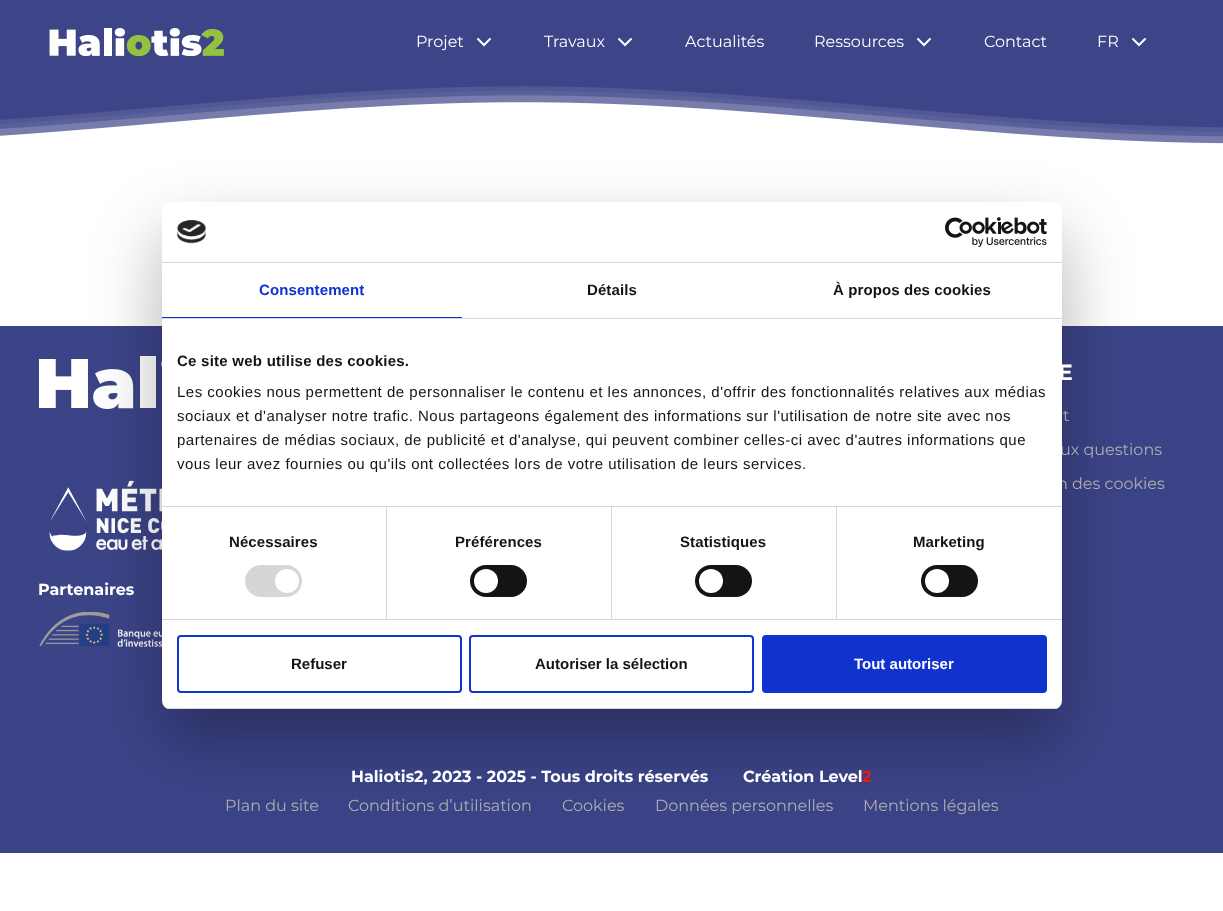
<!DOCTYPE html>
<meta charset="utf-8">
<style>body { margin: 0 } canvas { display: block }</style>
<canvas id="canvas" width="1223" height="911"></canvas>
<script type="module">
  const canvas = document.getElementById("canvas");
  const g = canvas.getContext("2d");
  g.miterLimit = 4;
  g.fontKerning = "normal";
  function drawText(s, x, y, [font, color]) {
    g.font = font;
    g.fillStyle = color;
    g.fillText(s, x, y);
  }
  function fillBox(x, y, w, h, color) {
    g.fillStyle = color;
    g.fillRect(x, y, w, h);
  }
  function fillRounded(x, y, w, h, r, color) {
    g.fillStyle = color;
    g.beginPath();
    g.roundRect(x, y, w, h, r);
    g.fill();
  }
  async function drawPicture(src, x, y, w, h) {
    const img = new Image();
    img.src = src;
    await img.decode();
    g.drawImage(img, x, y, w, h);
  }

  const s1 = ["16px Montserrat", "#FFFFFF"];
  const s2 = ["16px Montserrat", "#ADADAD"];
  const s3 = ["bold 15px Liberation Sans", "#1032CF"];
  const s4 = ["bold 15px Liberation Sans", "#141414"];
  const s5 = ["15px Liberation Sans", "#141414"];
  const s6 = ["bold 15px Liberation Sans", "#FFFFFF"];
  const s7 = ["bold 22px Montserrat", "#FFFFFF"];
  const s8 = ["bold 16px Montserrat", "#FFFFFF"];
  const s9 = ["bold 16px Montserrat", "#ED1717"];

  fillBox(0, 0, 1223, 911, "#FFFFFF");
  fillBox(0, 0, 1223, 84, "#3D4488");
  await drawPicture("pic1.png", 49, 28, 175, 28);
  drawText("Projet", 416, 47, s1);
  g.beginPath();
  g.moveTo(478, 39);
  g.lineTo(484, 45);
  g.lineTo(490, 39);
  g.strokeStyle = "#FFFFFF";
  g.lineWidth = 2;
  g.lineCap = "round";
  g.stroke();
  drawText("Travaux", 544, 47, s1);
  g.beginPath();
  g.moveTo(619, 39);
  g.lineTo(625, 45);
  g.lineTo(631, 39);
  g.stroke();
  drawText("Actualités", 685, 47, s1);
  drawText("Ressources", 814, 47, s1);
  g.beginPath();
  g.moveTo(918, 39);
  g.lineTo(924, 45);
  g.lineTo(930, 39);
  g.stroke();
  drawText("Contact", 984, 47, s1);
  drawText("FR", 1097, 47, s1);
  g.beginPath();
  g.moveTo(1133, 39);
  g.lineTo(1139, 45);
  g.lineTo(1145, 39);
  g.stroke();
  await drawPicture("pic2.png", 0, 84, 1223, 60);
  fillBox(0, 326, 1223, 527, "#3C4488");
  await drawPicture("pic5.png", 39, 356, 123, 53);
  await drawPicture("pic6.png", 49, 480, 113, 71);
  await drawPicture("pic7.png", 39, 612, 123, 35);
  g.fillStyle = "rgba(0, 0, 0, 0.3)";
  g.filter = "blur(34px)";
  g.beginPath();
  g.roundRect(162, 234, 900, 507, 8);
  g.fill();
  g.filter = "none";
  drawText("ux questions", 1060, 455, s2);
  drawText("n des cookies", 1057, 489, s2);
  fillRounded(162, 202, 900, 507, 8, "#FFFFFF");
  fillBox(162, 262, 900, 1, "#D6D6D6");
  await drawPicture("pic3.png", 176, 220, 30, 24);
  await drawPicture("pic4.png", 945, 217, 102, 30);
  fillBox(162, 318, 900, 1, "#D6D6D6");
  fillBox(162, 317, 300, 1, "#1032CF");
  g.letterSpacing = "0.1px";
  drawText("Consentement", 259, 295, s3);
  drawText("Détails", 587, 295, s4);
  drawText("À propos des cookies", 833, 295, s4);
  fillBox(162, 506, 900, 1, "#D6D6D6");
  g.letterSpacing = "0.25px";
  drawText("Ce site web utilise des cookies.", 177, 366, s4);
  g.letterSpacing = "0.5px";
  drawText("Les cookies nous permettent de personnaliser le contenu et les annonces, d'offrir des fonctionnalités relatives aux médias", 177, 397, s5);
  drawText("sociaux et d'analyser notre trafic. Nous partageons également des informations sur l'utilisation de notre site avec nos", 177, 421, s5);
  drawText("partenaires de médias sociaux, de publicité et d'analyse, qui peuvent combiner celles-ci avec d'autres informations que", 177, 445, s5);
  drawText("vous leur avez fournies ou qu'ils ont collectées lors de votre utilisation de leurs services.", 177, 469, s5);
  fillBox(162, 619, 900, 1, "#D6D6D6");
  fillBox(386, 507, 1, 112, "#D6D6D6");
  g.letterSpacing = "0.1px";
  drawText("Nécessaires", 229, 547, s4);
  fillRounded(245, 565, 57, 32, 16, "#D6D6D6");
  g.fillStyle = "#FFFFFF";
  g.beginPath();
  g.arc(287, 581, 12, 0, Math.PI * 2);
  g.fill();
  fillBox(611, 507, 1, 112, "#D6D6D6");
  drawText("Préférences", 455, 547, s4);
  fillRounded(470, 565, 57, 32, 16, "#141414");
  g.fillStyle = "#FFFFFF";
  g.beginPath();
  g.arc(486, 581, 12, 0, Math.PI * 2);
  g.fill();
  fillBox(836, 507, 1, 112, "#D6D6D6");
  drawText("Statistiques", 680, 547, s4);
  fillRounded(695, 565, 57, 32, 16, "#141414");
  g.fillStyle = "#FFFFFF";
  g.beginPath();
  g.arc(711, 581, 12, 0, Math.PI * 2);
  g.fill();
  drawText("Marketing", 913, 547, s4);
  fillRounded(921, 565, 57, 32, 16, "#141414");
  g.fillStyle = "#FFFFFF";
  g.beginPath();
  g.arc(937, 581, 12, 0, Math.PI * 2);
  g.fill();
  g.save();
  g.beginPath();
  g.roundRect(162, 202, 900, 507, 8);
  g.clip();
  fillBox(162, 708, 900, 1, "#D6D6D6");
  g.restore();
  g.beginPath();
  g.roundRect(178, 636, 283, 56, 3);
  g.strokeStyle = "#1032CF";
  g.stroke();
  g.letterSpacing = "0px";
  drawText("Refuser", 291, 669, s4);
  g.beginPath();
  g.roundRect(470, 636, 283, 56, 3);
  g.stroke();
  drawText("Autoriser la sélection", 535, 669, s4);
  g.fillStyle = "#1032CF";
  g.beginPath();
  g.roundRect(763, 636, 283, 56, 3);
  g.fill();
  g.stroke();
  drawText("Tout autoriser", 854, 669, s6);
  drawText("E", 1058, 380, s7);
  drawText("t", 1063, 421, s2);
  drawText("Partenaires", 38, 595, s8);
  drawText("Haliotis2, 2023 - 2025 - Tous droits réservés", 351, 782, s8);
  drawText("Création Level", 743, 782, s8);
  drawText("2", 862, 782, s9);
  drawText("Plan du site", 225, 811, s2);
  drawText("Conditions d’utilisation", 348, 811, s2);
  drawText("Cookies", 562, 811, s2);
  drawText("Données personnelles", 655, 811, s2);
  drawText("Mentions légales", 863, 811, s2);
</script>
